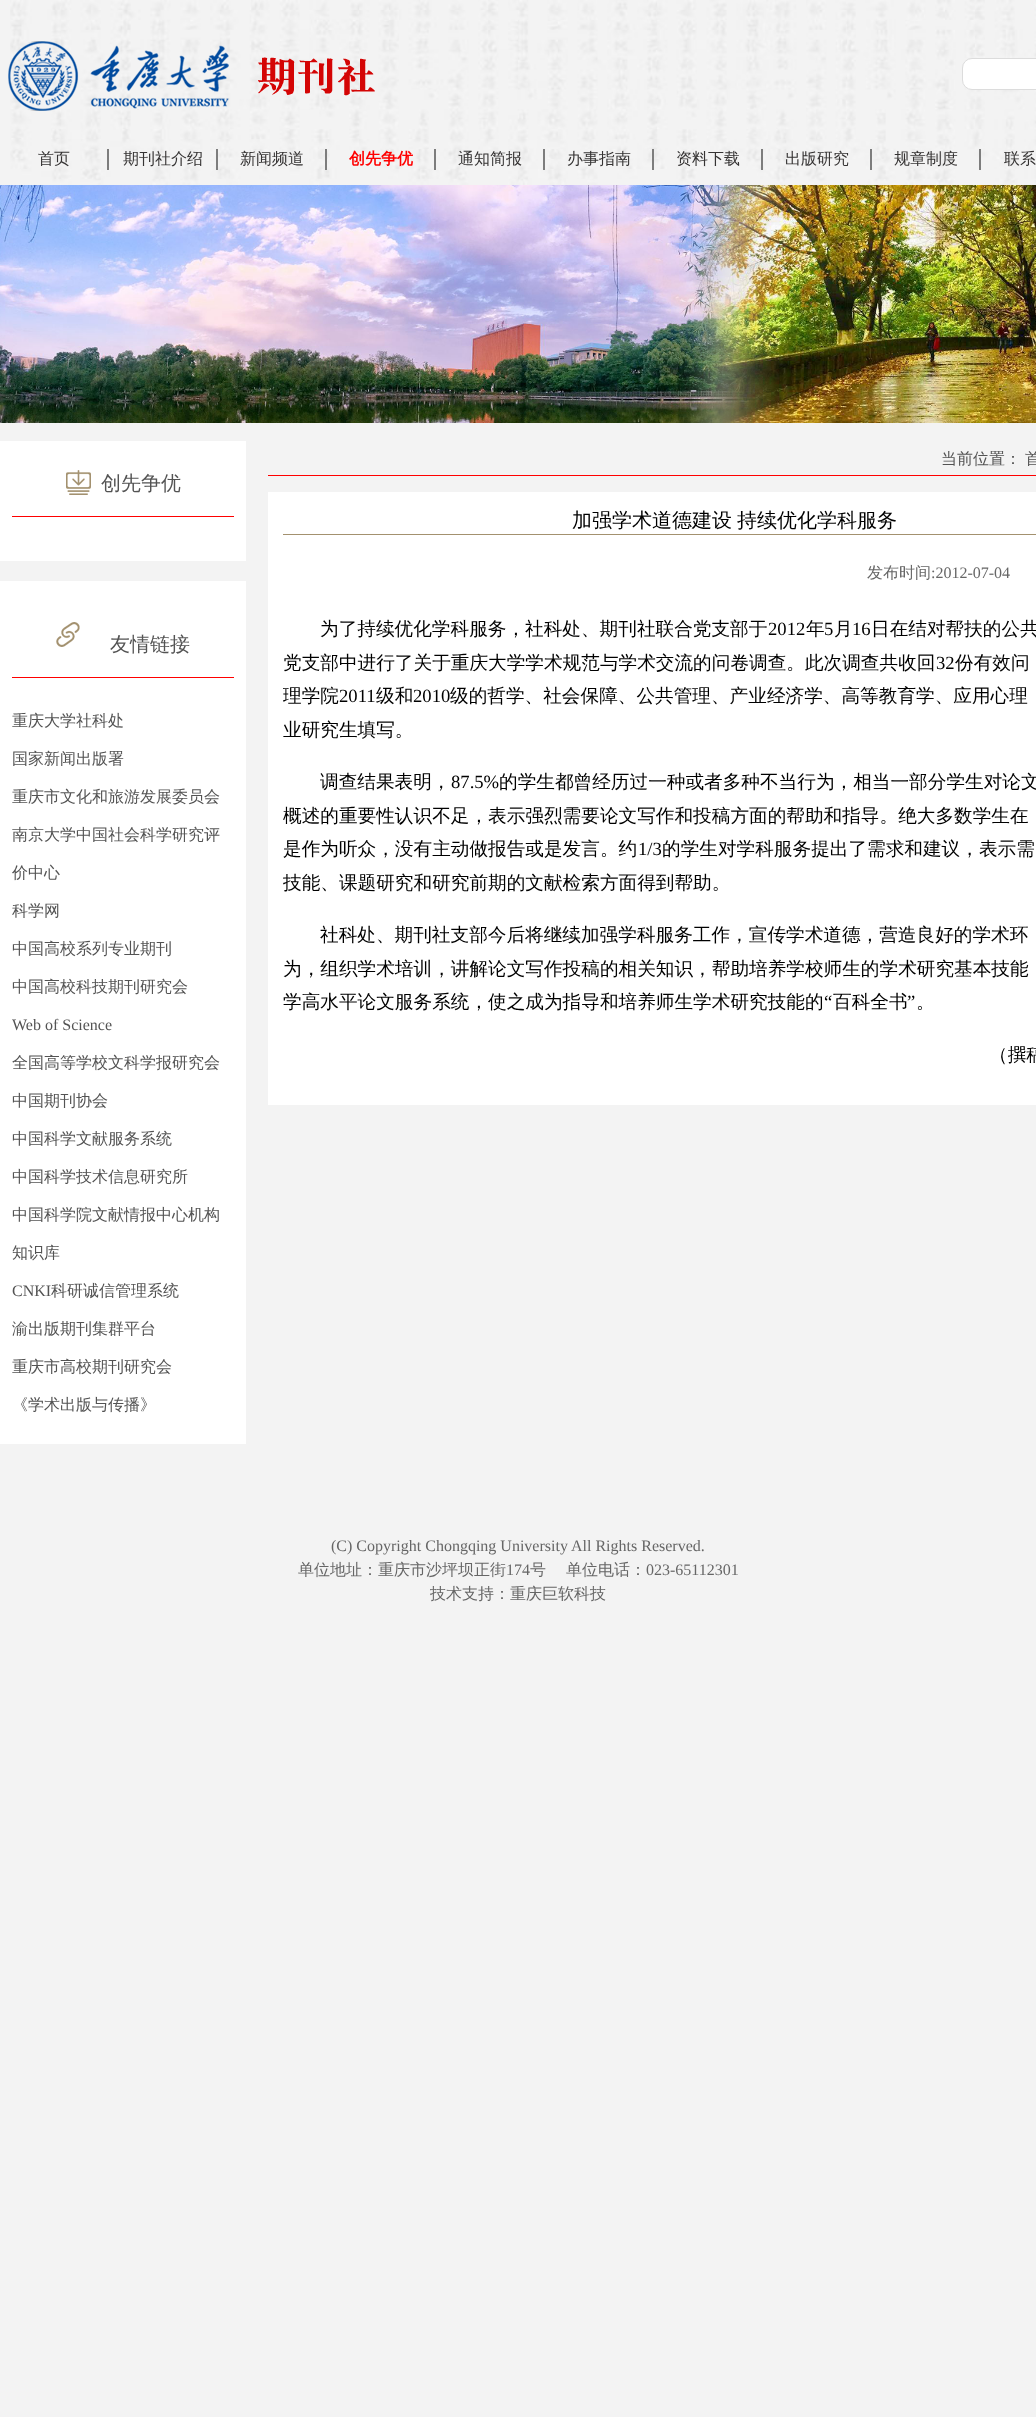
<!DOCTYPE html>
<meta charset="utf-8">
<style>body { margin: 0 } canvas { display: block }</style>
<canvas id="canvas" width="1036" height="2417"></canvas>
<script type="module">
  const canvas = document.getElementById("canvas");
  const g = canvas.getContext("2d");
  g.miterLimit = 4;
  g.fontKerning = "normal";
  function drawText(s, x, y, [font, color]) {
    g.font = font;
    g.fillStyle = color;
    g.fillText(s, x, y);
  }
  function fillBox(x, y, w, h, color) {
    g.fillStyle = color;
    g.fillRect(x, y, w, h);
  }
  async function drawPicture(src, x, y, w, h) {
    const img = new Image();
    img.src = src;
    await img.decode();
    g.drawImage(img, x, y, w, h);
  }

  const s1 = ["500 16px WenQuanYi Zen Hei", "#353333"];
  const s2 = ["bold 16px WenQuanYi Zen Hei", "#FF0000"];
  const s3 = ["500 20px WenQuanYi Zen Hei", "#535353"];
  const s4 = ["500 16px WenQuanYi Zen Hei", "#535353"];
  const s5 = ["16px Liberation Serif", "#535353"];
  const s6 = ["500 20px WenQuanYi Zen Hei", "#000000"];
  const s7 = ["500 16px WenQuanYi Zen Hei", "#666666"];
  const s8 = ["16px Liberation Serif", "#666666"];
  const s9 = ["500 18.65px WenQuanYi Zen Hei", "#000000"];
  const s10 = ["18.65px Liberation Serif", "#000000"];

  fillBox(0, 0, 1036, 2417, "#F3F3F3");
  await drawPicture("pic1.png", 10, 0, 1026, 185);
  await drawPicture("pic2.png", 8, 41, 367, 70);
  g.fillStyle = "#FFFFFF";
  g.beginPath();
  g.roundRect(962.5, 58.5, 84, 31, 9.5);
  g.fill();
  g.strokeStyle = "#DCDCDC";
  g.stroke();
  fillBox(107, 149, 2, 21, "#7D7D7D");
  drawText("首页", 38, 164, s1);
  fillBox(216, 149, 2, 21, "#7D7D7D");
  drawText("期刊社介绍", 123, 164, s1);
  fillBox(325, 149, 2, 21, "#7D7D7D");
  drawText("新闻频道", 240, 164, s1);
  fillBox(434, 149, 2, 21, "#7D7D7D");
  drawText("创先争优", 349, 164, s2);
  fillBox(543, 149, 2, 21, "#7D7D7D");
  drawText("通知简报", 458, 164, s1);
  fillBox(652, 149, 2, 21, "#7D7D7D");
  drawText("办事指南", 567, 164, s1);
  fillBox(761, 149, 2, 21, "#7D7D7D");
  drawText("资料下载", 676, 164, s1);
  fillBox(870, 149, 2, 21, "#7D7D7D");
  drawText("出版研究", 785, 164, s1);
  fillBox(979, 149, 2, 21, "#7D7D7D");
  drawText("规章制度", 894, 164, s1);
  drawText("联系", 1004, 164, s1);
  await drawPicture("pic3.png", 0, 185, 1036, 238);
  fillBox(0, 441, 246, 120, "#FFFFFF");
  fillBox(12, 516, 222, 1, "#FF0000");
  await drawPicture("pic4.png", 66, 470, 25, 25);
  drawText("创先争优", 101, 490, s3);
  fillBox(0, 581, 246, 863, "#FFFFFF");
  fillBox(12, 677, 222, 1, "#FF0000");
  await drawPicture("pic5.png", 56, 622, 24, 25);
  drawText("友情链接", 110, 651, s3);
  drawText("重庆大学社科处", 12, 726, s4);
  drawText("国家新闻出版署", 12, 764, s4);
  drawText("重庆市文化和旅游发展委员会", 12, 802, s4);
  drawText("南京大学中国社会科学研究评", 12, 840, s4);
  drawText("价中心", 12, 878, s4);
  drawText("科学网", 12, 916, s4);
  drawText("中国高校系列专业期刊", 12, 954, s4);
  drawText("中国高校科技期刊研究会", 12, 992, s4);
  drawText("Web of Science", 12, 1030, s5);
  drawText("全国高等学校文科学报研究会", 12, 1068, s4);
  drawText("中国期刊协会", 12, 1106, s4);
  drawText("中国科学文献服务系统", 12, 1144, s4);
  drawText("中国科学技术信息研究所", 12, 1182, s4);
  drawText("中国科学院文献情报中心机构", 12, 1220, s4);
  drawText("知识库", 12, 1258, s4);
  drawText("CNKI", 12, 1296, s5);
  drawText("科研诚信管理系统", 51, 1296, s4);
  drawText("渝出版期刊集群平台", 12, 1334, s4);
  drawText("重庆市高校期刊研究会", 12, 1372, s4);
  drawText("《学术出版与传播》", 12, 1410, s4);
  fillBox(268, 475, 768, 1, "#FF0000");
  drawText("当前位置：", 941, 464, s4);
  drawText("首", 1025, 464, s4);
  fillBox(268, 492, 768, 613, "#FFFFFF");
  fillBox(283, 534, 753, 1, "#A3916F");
  g.wordSpacing = "-1px";
  drawText("加强学术道德建设 持续优化学科服务", 572, 527, s6);
  g.wordSpacing = "0px";
  drawText("发布时间", 867, 578, s7);
  drawText(":2012-07-04", 931, 578, s8);
  drawText("为了持续优化学科服务，社科处、期刊社联合党支部于", 320, 635, s9);
  drawText("2012", 768, 635, s10);
  drawText("年", 806, 635, s9);
  drawText("5", 824, 635, s10);
  drawText("月", 834, 635, s9);
  drawText("16", 852, 635, s10);
  drawText("日在结对帮扶的公共", 871, 635, s9);
  drawText("党支部中进行了关于重庆大学学术规范与学术交流的问卷调查。此次调查共收回", 283, 669, s9);
  drawText("32", 936, 669, s10);
  drawText("份有效问", 955, 669, s9);
  drawText("理学院", 283, 702, s9);
  drawText("2011", 339, 702, s10);
  drawText("级和", 376, 702, s9);
  drawText("2010", 413, 702, s10);
  drawText("级的哲学、社会保障、公共管理、产业经济学、高等教育学、应用心理", 450, 702, s9);
  drawText("业研究生填写。", 283, 736, s9);
  drawText("调查结果表明，", 320, 788, s9);
  drawText("87.5%", 451, 788, s10);
  drawText("的学生都曾经历过一种或者多种不当行为，相当一部分学生对论文", 499, 788, s9);
  drawText("概述的重要性认识不足，表示强烈需要论文写作和投稿方面的帮助和指导。绝大多数学生在", 283, 822, s9);
  drawText("是作为听众，没有主动做报告或是发言。约", 283, 855, s9);
  drawText("1/3", 638, 855, s10);
  drawText("的学生对学科服务提出了需求和建议，表示需", 662, 855, s9);
  drawText("技能、课题研究和研究前期的文献检索方面得到帮助。", 283, 889, s9);
  drawText("社科处、期刊社支部今后将继续加强学科服务工作，宣传学术道德，营造良好的学术环", 320, 941, s9);
  drawText("为，组织学术培训，讲解论文写作投稿的相关知识，帮助培养学校师生的学术研究基本技能", 283, 975, s9);
  drawText("学高水平论文服务系统，使之成为指导和培养师生学术研究技能的", 283, 1008, s9);
  drawText("“", 824, 1008, s10);
  drawText("百科全书", 833, 1008, s9);
  drawText("”", 907, 1008, s10);
  drawText("。", 916, 1008, s9);
  g.wordSpacing = "-1px";
  drawText("（撰稿", 989, 1061, s9);
  g.wordSpacing = "0px";
  drawText("(C) Copyright Chongqing University All Rights Reserved.", 331, 1551, s8);
  drawText("单位地址：重庆市沙坪坝正街", 298, 1575, s7);
  drawText("174", 506, 1575, s8);
  drawText("号", 530, 1575, s7);
  drawText("单位电话：", 566, 1575, s7);
  drawText("023-65112301", 646, 1575, s8);
  drawText("技术支持：重庆巨软科技", 430, 1599, s7);
</script>
